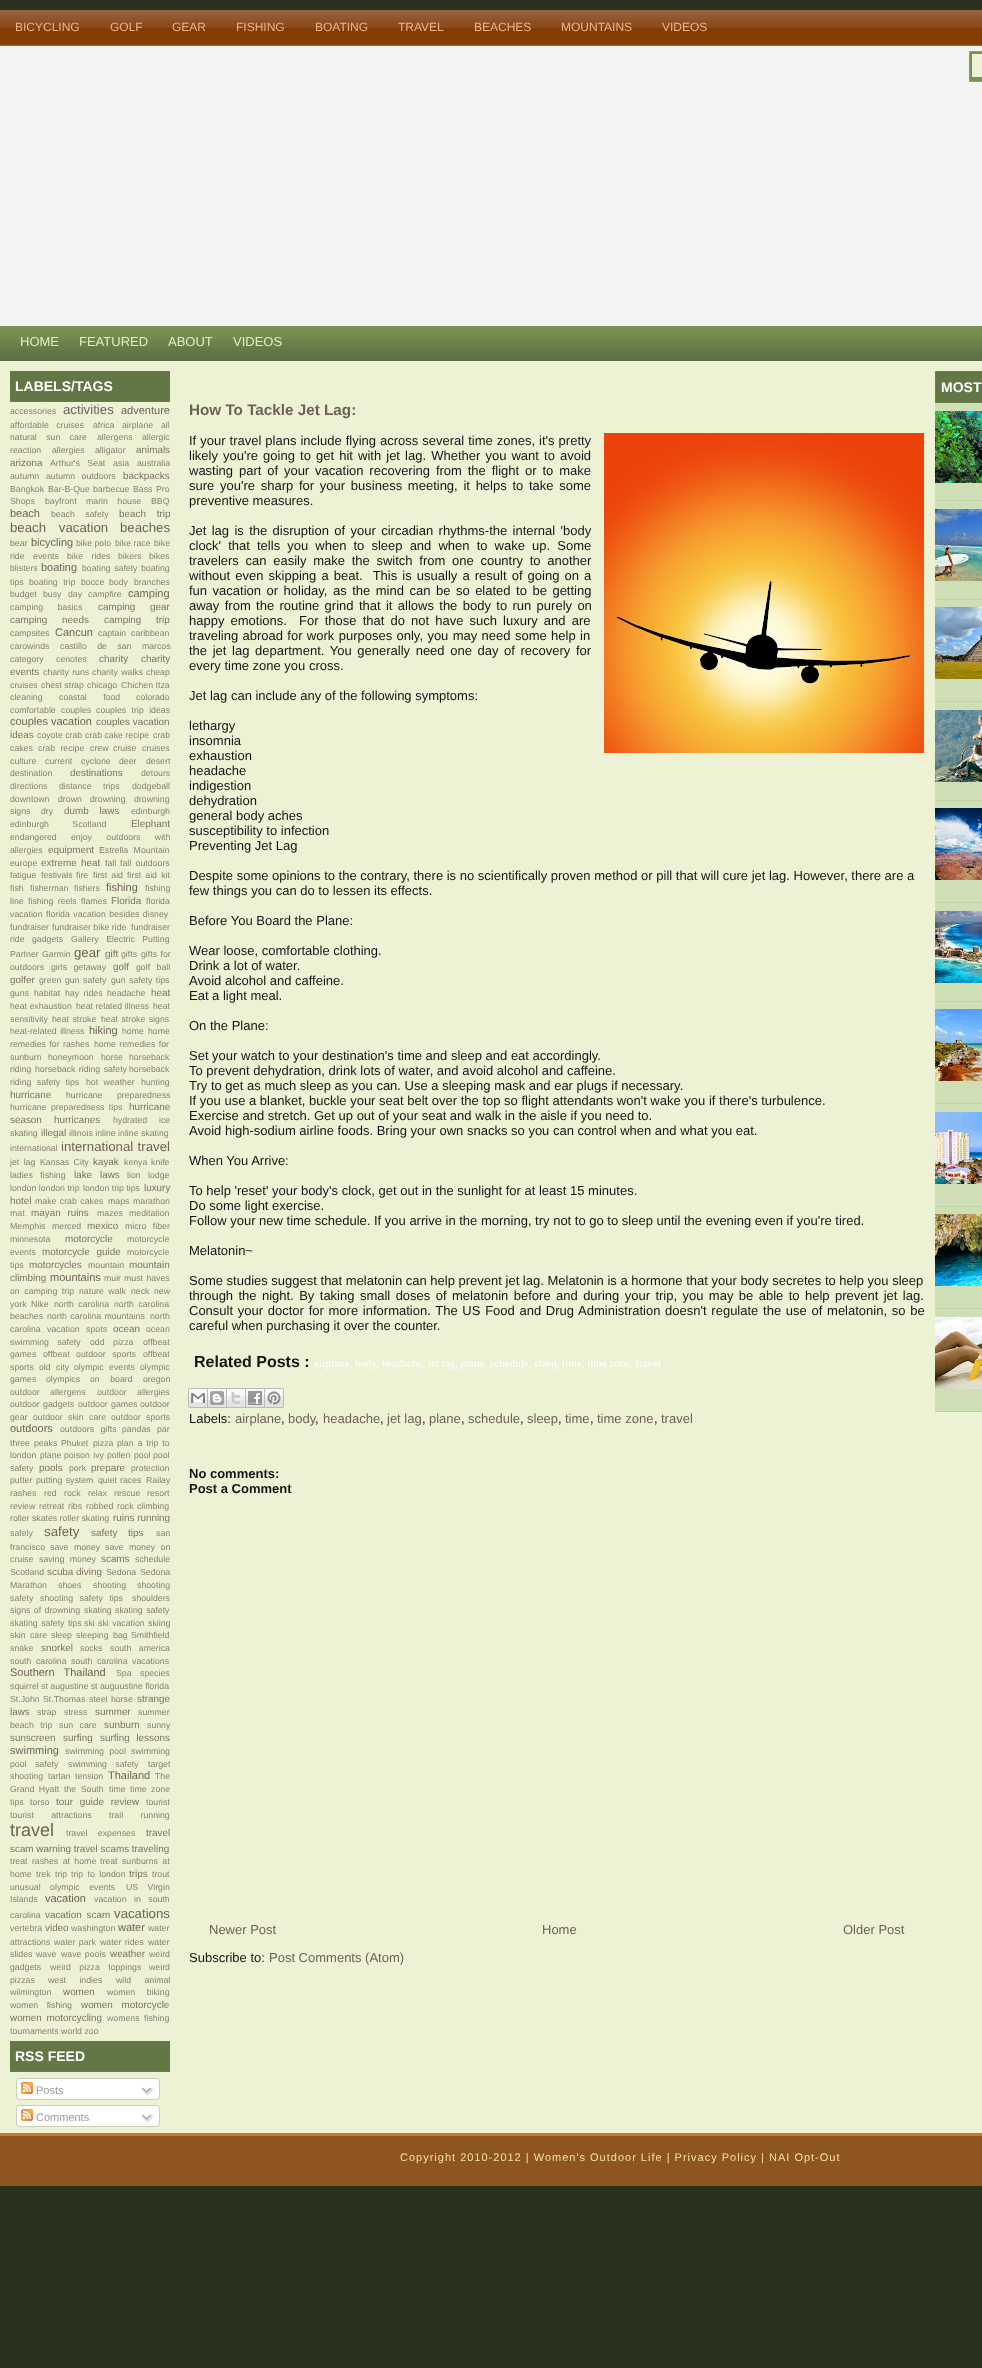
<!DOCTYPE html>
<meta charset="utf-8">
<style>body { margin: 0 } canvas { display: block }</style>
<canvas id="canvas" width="982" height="2368"></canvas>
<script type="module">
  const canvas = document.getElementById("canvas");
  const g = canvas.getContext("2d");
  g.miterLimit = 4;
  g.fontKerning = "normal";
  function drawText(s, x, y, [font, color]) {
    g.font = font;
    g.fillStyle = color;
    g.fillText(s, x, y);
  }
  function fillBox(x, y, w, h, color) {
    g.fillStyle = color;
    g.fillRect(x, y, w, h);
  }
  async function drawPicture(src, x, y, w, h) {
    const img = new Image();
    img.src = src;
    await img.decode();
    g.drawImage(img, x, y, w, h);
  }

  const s1 = ["12px Liberation Sans", "#ECB487"];
  const s2 = ["13px Liberation Sans", "#DEEFC2"];
  const s3 = ["bold 14px Liberation Sans", "#FFFFFF"];
  const s4 = ["8.75px Liberation Sans", "#887E73"];
  const s5 = ["13.25px Liberation Sans", "#6F615A"];
  const s6 = ["11px Liberation Sans", "#6F615A"];
  const s7 = ["9.9px Liberation Sans", "#7C7066"];
  const s8 = ["18px Liberation Sans", "#6F615A"];
  const s9 = ["11px Liberation Sans", "#999999"];
  const s10 = ["bold 15.25px Liberation Sans", "#6F615A"];
  const s11 = ["13px Liberation Sans", "#161514"];
  const s12 = ["bold 16px Liberation Sans", "#161514"];
  const s13 = ["11px Liberation Serif", "#FFFFFF"];
  const s14 = ["13px Liberation Sans", "#6F615A"];
  const s15 = ["bold 13px Liberation Sans", "#161514"];
  const s16 = ["11px Liberation Sans", "#EFE2A4"];

  fillBox(0, 0, 982, 2368, "#2A311F");
  await drawPicture("pic1.png", 0, 10, 982, 35);
  fillBox(0, 45, 982, 1, "#67842A");
  drawText("BICYCLING", 15, 31, s1);
  drawText("GOLF", 110, 31, s1);
  drawText("GEAR", 172, 31, s1);
  drawText("FISHING", 236, 31, s1);
  drawText("BOATING", 315, 31, s1);
  drawText("TRAVEL", 398, 31, s1);
  drawText("BEACHES", 474, 31, s1);
  drawText("MOUNTAINS", 561, 31, s1);
  drawText("VIDEOS", 662, 31, s1);
  fillBox(0, 46, 982, 280, "#F4F4F4");
  g.fillStyle = "#7A9256";
  g.beginPath();
  g.rect(969.5, 51.5, 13, 30);
  g.fill();
  g.strokeStyle = "#8B9F6D";
  g.stroke();
  fillBox(972, 54, 10, 23, "#EEF2D5");
  await drawPicture("pic2.png", 0, 326, 982, 35);
  drawText("HOME", 20, 346, s2);
  drawText("FEATURED", 79, 346, s2);
  drawText("ABOUT", 168, 346, s2);
  drawText("VIDEOS", 233, 346, s2);
  fillBox(0, 361, 982, 1772, "#EEF2D5");
  fillBox(10, 371, 160, 30, "#637746");
  fillBox(10, 401, 160, 1, "#687F47");
  drawText("LABELS/TAGS", 15, 391, s3);
  drawText("accessories", 10, 414, s4);
  drawText("activities", 63, 414, s5);
  drawText("adventure", 121, 414, s6);
  g.wordSpacing = "5px";
  drawText("affordable cruises", 10, 428, s4);
  g.wordSpacing = "0px";
  drawText("africa", 93, 428, s4);
  drawText("airplane", 122, 428, s4);
  drawText("all", 161, 428, s4);
  g.wordSpacing = "7px";
  drawText("natural sun care", 10, 440, s4);
  g.wordSpacing = "0px";
  drawText("allergens", 97, 440, s4);
  drawText("allergic", 142, 440, s4);
  drawText("reaction", 10, 453, s4);
  drawText("allergies", 52, 453, s4);
  drawText("alligator", 95, 453, s4);
  drawText("animals", 136, 453, s7);
  drawText("arizona", 10, 466, s7);
  g.wordSpacing = "5px";
  drawText("Arthur's Seat", 50, 466, s4);
  g.wordSpacing = "0px";
  drawText("asia", 113, 466, s4);
  drawText("australia", 137, 466, s4);
  drawText("autumn", 10, 479, s4);
  g.wordSpacing = "4px";
  drawText("autumn outdoors", 46, 479, s4);
  g.wordSpacing = "0px";
  drawText("backpacks", 123, 479, s7);
  drawText("Bangkok", 10, 492, s4);
  drawText("Bar-B-Que", 48, 492, s4);
  drawText("barbecue", 93, 492, s4);
  g.wordSpacing = "1px";
  drawText("Bass Pro", 133, 492, s4);
  g.wordSpacing = "0px";
  drawText("Shops", 10, 504, s4);
  g.wordSpacing = "7px";
  drawText("bayfront marin house", 45, 504, s4);
  g.wordSpacing = "0px";
  drawText("BBQ", 151, 504, s4);
  drawText("beach", 10, 517, s6);
  g.wordSpacing = "8px";
  drawText("beach safety", 51, 517, s4);
  drawText("beach trip", 119, 517, s7);
  g.wordSpacing = "9px";
  drawText("beach vacation", 10, 532, s5);
  g.wordSpacing = "0px";
  drawText("beaches", 120, 532, s5);
  drawText("bear", 10, 546, s4);
  drawText("bicycling", 31, 546, s6);
  drawText("bike polo", 76, 546, s4);
  drawText("bike race", 115, 546, s4);
  drawText("bike", 154, 546, s4);
  g.wordSpacing = "6px";
  drawText("ride events", 10, 559, s4);
  drawText("bike rides", 67, 559, s4);
  g.wordSpacing = "0px";
  drawText("bikers", 118, 559, s4);
  drawText("bikes", 149, 559, s4);
  drawText("blisters", 10, 571, s4);
  drawText("boating", 41, 571, s6);
  g.wordSpacing = "1px";
  drawText("boating safety", 82, 571, s4);
  g.wordSpacing = "0px";
  drawText("boating", 141, 571, s4);
  drawText("tips", 10, 585, s4);
  g.wordSpacing = "3px";
  drawText("boating trip", 29, 585, s4);
  g.wordSpacing = "0px";
  drawText("bocce", 81, 585, s4);
  drawText("body", 109, 585, s4);
  drawText("branches", 134, 585, s4);
  drawText("budget", 10, 597, s4);
  g.wordSpacing = "4px";
  drawText("busy day", 43, 597, s4);
  g.wordSpacing = "0px";
  drawText("campfire", 88, 597, s4);
  drawText("camping", 128, 597, s6);
  g.wordSpacing = "12px";
  drawText("camping basics", 10, 610, s4);
  drawText("camping gear", 98, 610, s7);
  drawText("camping needs", 10, 623, s7);
  drawText("camping trip", 104, 623, s7);
  g.wordSpacing = "0px";
  drawText("campsites", 10, 636, s4);
  drawText("Cancun", 55, 636, s6);
  drawText("captain", 98, 636, s4);
  drawText("caribbean", 131, 636, s4);
  drawText("carowinds", 10, 649, s4);
  g.wordSpacing = "8px";
  drawText("castillo de san marcos", 60, 649, s4);
  g.wordSpacing = "0px";
  drawText("category", 10, 662, s4);
  drawText("cenotes", 56, 662, s4);
  drawText("charity", 99, 662, s7);
  drawText("charity", 141, 662, s7);
  drawText("events", 10, 675, s7);
  g.wordSpacing = "1px";
  drawText("charity runs", 43, 675, s4);
  drawText("charity walks", 92, 675, s4);
  g.wordSpacing = "0px";
  drawText("cheap", 146, 675, s4);
  drawText("cruises", 10, 688, s4);
  drawText("chest strap", 41, 688, s4);
  drawText("chicago", 87, 688, s4);
  drawText("Chichen Itza", 121, 688, s4);
  drawText("cleaning", 10, 700, s4);
  g.wordSpacing = "14px";
  drawText("coastal food", 59, 700, s4);
  g.wordSpacing = "0px";
  drawText("colorado", 136, 700, s4);
  drawText("comfortable", 10, 713, s4);
  drawText("couples", 61, 713, s4);
  g.wordSpacing = "3px";
  drawText("couples trip ideas", 96, 713, s4);
  g.wordSpacing = "0px";
  drawText("couples vacation", 10, 725, s6);
  drawText("couples vacation", 96, 725, s7);
  drawText("ideas", 10, 738, s7);
  drawText("coyote crab", 37, 738, s4);
  drawText("crab cake recipe", 85, 738, s4);
  drawText("crab", 153, 738, s4);
  drawText("cakes", 10, 751, s4);
  g.wordSpacing = "3px";
  drawText("crab recipe", 38, 751, s4);
  g.wordSpacing = "0px";
  drawText("crew", 90, 751, s4);
  drawText("cruise", 113, 751, s4);
  drawText("cruises", 142, 751, s4);
  drawText("culture", 10, 764, s4);
  drawText("current", 45, 764, s4);
  drawText("cyclone", 81, 764, s4);
  drawText("deer", 119, 764, s4);
  drawText("desert", 146, 764, s4);
  drawText("destination", 10, 776, s4);
  drawText("destinations", 70, 776, s7);
  drawText("detours", 141, 776, s4);
  drawText("directions", 10, 789, s4);
  g.wordSpacing = "9px";
  drawText("distance trips", 59, 789, s4);
  g.wordSpacing = "0px";
  drawText("dodgeball", 132, 789, s4);
  drawText("downtown", 10, 802, s4);
  drawText("drown", 58, 802, s4);
  drawText("drowning", 90, 802, s4);
  drawText("drowning", 134, 802, s4);
  drawText("signs", 10, 814, s4);
  drawText("dry", 41, 814, s4);
  g.wordSpacing = "8px";
  drawText("dumb laws", 64, 814, s7);
  g.wordSpacing = "0px";
  drawText("edinburgh", 131, 814, s4);
  g.wordSpacing = "21px";
  drawText("edinburgh Scotland", 10, 827, s4);
  g.wordSpacing = "0px";
  drawText("Elephant", 131, 827, s7);
  drawText("endangered", 10, 840, s4);
  g.wordSpacing = "12px";
  drawText("enjoy outdoors with", 71, 840, s4);
  g.wordSpacing = "0px";
  drawText("allergies", 10, 853, s4);
  drawText("equipment", 48, 853, s7);
  g.wordSpacing = "3px";
  drawText("Estrella Mountain", 99, 853, s4);
  g.wordSpacing = "0px";
  drawText("europe", 10, 866, s4);
  g.wordSpacing = "1.5px";
  drawText("extreme heat", 41, 866, s7);
  g.wordSpacing = "0px";
  drawText("fall", 105, 866, s4);
  g.wordSpacing = "2px";
  drawText("fall outdoors", 120, 866, s4);
  g.wordSpacing = "0px";
  drawText("fatigue", 10, 878, s4);
  drawText("festivals", 41, 878, s4);
  drawText("fire", 76, 878, s4);
  g.wordSpacing = "1.75px";
  drawText("first aid", 93, 878, s4);
  drawText("first aid kit", 127, 878, s4);
  g.wordSpacing = "0px";
  drawText("fish", 10, 891, s4);
  drawText("fisherman", 30, 891, s4);
  drawText("fishers", 74, 891, s4);
  drawText("fishing", 106, 891, s6);
  drawText("fishing", 145, 891, s4);
  drawText("line", 10, 904, s4);
  g.wordSpacing = "2px";
  drawText("fishing reels", 28, 904, s4);
  g.wordSpacing = "0px";
  drawText("flames", 81, 904, s4);
  drawText("Florida", 111, 904, s7);
  drawText("florida", 146, 904, s4);
  drawText("vacation", 10, 917, s4);
  g.wordSpacing = "1px";
  drawText("florida vacation besides disney", 46, 917, s4);
  g.wordSpacing = "0px";
  drawText("fundraiser", 10, 930, s4);
  drawText("fundraiser bike ride", 52, 930, s4);
  drawText("fundraiser", 131, 930, s4);
  drawText("ride", 10, 942, s4);
  drawText("gadgets", 32, 942, s4);
  g.wordSpacing = "5px";
  drawText("Gallery Electric Putting", 71, 942, s4);
  g.wordSpacing = "0px";
  drawText("Partner", 10, 957, s4);
  drawText("Garmin", 42, 957, s4);
  drawText("gear", 74, 957, s5);
  drawText("gift", 105, 957, s7);
  drawText("gifts", 121, 957, s4);
  g.wordSpacing = "1px";
  drawText("gifts for", 141, 957, s4);
  g.wordSpacing = "0px";
  drawText("outdoors", 10, 970, s4);
  g.wordSpacing = "4px";
  drawText("girls getaway", 51, 970, s4);
  g.wordSpacing = "0px";
  drawText("golf", 113, 970, s7);
  g.wordSpacing = "4px";
  drawText("golf ball", 136, 970, s4);
  g.wordSpacing = "0px";
  drawText("golfer", 10, 983, s7);
  drawText("green", 39, 983, s4);
  g.wordSpacing = "1px";
  drawText("gun safety", 65, 983, s4);
  drawText("gun safety tips", 111, 983, s4);
  g.wordSpacing = "0px";
  drawText("guns", 10, 996, s4);
  drawText("habitat", 34, 996, s4);
  g.wordSpacing = "2px";
  drawText("hay rides", 65, 996, s4);
  g.wordSpacing = "0px";
  drawText("headache", 107, 996, s4);
  drawText("heat", 151, 996, s7);
  drawText("heat exhaustion", 10, 1009, s4);
  drawText("heat related illness", 76, 1009, s4);
  drawText("heat", 153, 1009, s4);
  drawText("sensitivity", 10, 1022, s4);
  g.wordSpacing = "1px";
  drawText("heat stroke", 52, 1022, s4);
  drawText("heat stroke signs", 101, 1022, s4);
  drawText("heat-related illness", 10, 1034, s4);
  g.wordSpacing = "0px";
  drawText("hiking", 89, 1034, s6);
  drawText("home", 122, 1034, s4);
  drawText("home", 148, 1034, s4);
  g.wordSpacing = "1px";
  drawText("remedies for rashes", 10, 1047, s4);
  drawText("home remedies for", 94, 1047, s4);
  g.wordSpacing = "0px";
  drawText("sunburn", 10, 1060, s4);
  drawText("honeymoon", 48, 1060, s4);
  drawText("horse", 101, 1060, s4);
  drawText("horseback", 129, 1060, s4);
  drawText("riding", 10, 1072, s4);
  g.wordSpacing = "1px";
  drawText("horseback riding safety", 35, 1072, s4);
  g.wordSpacing = "0px";
  drawText("horseback", 129, 1072, s4);
  g.wordSpacing = "3px";
  drawText("riding safety tips", 10, 1085, s4);
  drawText("hot weather", 86, 1085, s4);
  g.wordSpacing = "0px";
  drawText("hunting", 141, 1085, s4);
  drawText("hurricane", 10, 1098, s7);
  g.wordSpacing = "12px";
  drawText("hurricane preparedness", 66, 1098, s4);
  g.wordSpacing = "2px";
  drawText("hurricane preparedness tips", 10, 1110, s4);
  g.wordSpacing = "0px";
  drawText("hurricane", 129, 1110, s7);
  drawText("season", 10, 1123, s7);
  drawText("hurricanes", 54, 1123, s7);
  drawText("hydrated", 113, 1123, s4);
  drawText("ice", 159, 1123, s4);
  drawText("skating", 10, 1136, s4);
  drawText("illegal", 41, 1136, s7);
  drawText("illinois inline inline skating", 69, 1136, s4);
  drawText("international", 10, 1151, s4);
  g.wordSpacing = "0.75px";
  drawText("international travel", 61, 1151, s5);
  g.wordSpacing = "2px";
  drawText("jet lag", 10, 1165, s4);
  drawText("Kansas City", 40, 1165, s4);
  g.wordSpacing = "0px";
  drawText("kayak", 93, 1165, s7);
  drawText("kenya", 124, 1165, s4);
  drawText("knife", 151, 1165, s4);
  g.wordSpacing = "5px";
  drawText("ladies fishing", 10, 1178, s4);
  g.wordSpacing = "0px";
  drawText("lake", 74, 1178, s7);
  drawText("laws", 100, 1178, s7);
  drawText("lion", 127, 1178, s4);
  drawText("lodge", 148, 1178, s4);
  drawText("london london trip", 10, 1191, s4);
  drawText("london trip tips", 83, 1191, s4);
  drawText("luxury", 144, 1191, s7);
  drawText("hotel", 10, 1204, s7);
  g.wordSpacing = "1px";
  drawText("make crab cakes", 35, 1204, s4);
  g.wordSpacing = "0px";
  drawText("maps", 108, 1204, s4);
  drawText("marathon", 133, 1204, s4);
  drawText("mat", 10, 1216, s4);
  g.wordSpacing = "4px";
  drawText("mayan ruins", 31, 1216, s7);
  g.wordSpacing = "0px";
  drawText("mazes", 97, 1216, s4);
  drawText("meditation", 129, 1216, s4);
  drawText("Memphis", 10, 1229, s4);
  drawText("merced", 52, 1229, s4);
  drawText("mexico", 87, 1229, s7);
  g.wordSpacing = "4px";
  drawText("micro fiber", 125, 1229, s4);
  g.wordSpacing = "0px";
  drawText("minnesota", 10, 1242, s4);
  drawText("motorcycle", 65, 1242, s7);
  drawText("motorcycle", 127, 1242, s4);
  drawText("events", 10, 1255, s4);
  g.wordSpacing = "4px";
  drawText("motorcycle guide", 42, 1255, s7);
  g.wordSpacing = "0px";
  drawText("motorcycle", 127, 1255, s4);
  drawText("tips", 10, 1268, s4);
  drawText("motorcycles", 29, 1268, s7);
  drawText("mountain", 88, 1268, s4);
  drawText("mountain", 129, 1268, s7);
  drawText("climbing", 10, 1281, s7);
  drawText("mountains", 50, 1281, s6);
  drawText("muir", 104, 1281, s4);
  g.wordSpacing = "1px";
  drawText("must haves", 124, 1281, s4);
  g.wordSpacing = "2.1px";
  drawText("on camping trip", 10, 1294, s4);
  drawText("nature walk", 79, 1294, s4);
  g.wordSpacing = "0px";
  drawText("neck", 131, 1294, s4);
  drawText("new", 154, 1294, s4);
  drawText("york", 10, 1307, s4);
  drawText("Nike", 31, 1307, s4);
  g.wordSpacing = "2px";
  drawText("north carolina", 54, 1307, s4);
  drawText("north carolina", 114, 1307, s4);
  g.wordSpacing = "0px";
  drawText("beaches", 10, 1319, s4);
  g.wordSpacing = "1px";
  drawText("north carolina mountains", 47, 1319, s4);
  g.wordSpacing = "0px";
  drawText("north", 150, 1319, s4);
  g.wordSpacing = "4px";
  drawText("carolina vacation spots", 10, 1332, s4);
  g.wordSpacing = "0px";
  drawText("ocean", 113, 1332, s7);
  drawText("ocean", 146, 1332, s4);
  g.wordSpacing = "6px";
  drawText("swimming safety", 10, 1345, s4);
  drawText("odd pizza", 90, 1345, s4);
  g.wordSpacing = "0px";
  drawText("offbeat", 143, 1345, s4);
  drawText("games", 10, 1357, s4);
  g.wordSpacing = "4px";
  drawText("offbeat outdoor sports", 43, 1357, s4);
  g.wordSpacing = "0px";
  drawText("offbeat", 143, 1357, s4);
  drawText("sports", 10, 1370, s4);
  g.wordSpacing = "3px";
  drawText("old city", 39, 1370, s4);
  drawText("olympic events", 74, 1370, s4);
  g.wordSpacing = "0px";
  drawText("olympic", 140, 1370, s4);
  drawText("games", 10, 1382, s4);
  drawText("olympics", 46, 1382, s4);
  g.wordSpacing = "8px";
  drawText("on board", 90, 1382, s4);
  g.wordSpacing = "0px";
  drawText("oregon", 143, 1382, s4);
  g.wordSpacing = "8px";
  drawText("outdoor allergens", 10, 1395, s4);
  drawText("outdoor allergies", 97, 1395, s4);
  g.wordSpacing = "1px";
  drawText("outdoor gadgets", 10, 1407, s4);
  drawText("outdoor games", 78, 1407, s4);
  g.wordSpacing = "0px";
  drawText("outdoor", 140, 1407, s4);
  drawText("gear", 10, 1420, s4);
  g.wordSpacing = "3px";
  drawText("outdoor skin care", 33, 1420, s4);
  drawText("outdoor sports", 111, 1420, s4);
  g.wordSpacing = "0px";
  drawText("outdoors", 10, 1432, s6);
  g.wordSpacing = "4px";
  drawText("outdoors gifts", 60, 1432, s4);
  g.wordSpacing = "0px";
  drawText("pandas", 122, 1432, s4);
  drawText("par", 157, 1432, s4);
  drawText("three", 10, 1446, s4);
  drawText("peaks", 34, 1446, s4);
  drawText("Phuket", 61, 1446, s4);
  drawText("pizza", 93, 1446, s4);
  g.wordSpacing = "1.5px";
  drawText("plan a trip to", 117, 1446, s4);
  g.wordSpacing = "0px";
  drawText("london", 10, 1458, s4);
  drawText("plane", 40, 1458, s4);
  g.wordSpacing = "1px";
  drawText("poison ivy", 64, 1458, s4);
  g.wordSpacing = "0px";
  drawText("pollen", 107, 1458, s4);
  drawText("pool", 134, 1458, s4);
  drawText("pool", 153, 1458, s4);
  drawText("safety", 10, 1471, s4);
  drawText("pools", 39, 1471, s7);
  drawText("pork", 69, 1471, s4);
  drawText("prepare", 91, 1471, s7);
  drawText("protection", 131, 1471, s4);
  drawText("putter", 10, 1483, s4);
  g.wordSpacing = "1px";
  drawText("putting system", 36, 1483, s4);
  g.wordSpacing = "0px";
  drawText("quiet", 98, 1483, s4);
  drawText("races", 120, 1483, s4);
  drawText("Railay", 146, 1483, s4);
  drawText("rashes", 10, 1496, s4);
  g.wordSpacing = "5px";
  drawText("red rock", 44, 1496, s4);
  g.wordSpacing = "0px";
  drawText("relax", 88, 1496, s4);
  drawText("rescue", 114, 1496, s4);
  drawText("resort", 147, 1496, s4);
  drawText("review", 10, 1509, s4);
  drawText("retreat", 39, 1509, s4);
  drawText("ribs", 68, 1509, s4);
  drawText("robbed", 86, 1509, s4);
  g.wordSpacing = "1px";
  drawText("rock climbing", 117, 1509, s4);
  g.wordSpacing = "0px";
  drawText("roller skates roller skating", 10, 1521, s4);
  drawText("ruins running", 113, 1521, s7);
  drawText("safely", 10, 1536, s4);
  drawText("safety", 44, 1536, s5);
  g.wordSpacing = "8px";
  drawText("safety tips", 91, 1536, s7);
  g.wordSpacing = "0px";
  drawText("san", 156, 1536, s4);
  drawText("francisco", 10, 1550, s4);
  g.wordSpacing = "3px";
  drawText("save money", 50, 1550, s4);
  drawText("save money on", 105, 1550, s4);
  g.wordSpacing = "0px";
  drawText("cruise", 10, 1562, s4);
  g.wordSpacing = "3px";
  drawText("saving money", 39, 1562, s4);
  g.wordSpacing = "0px";
  drawText("scams", 101, 1562, s7);
  drawText("schedule", 135, 1562, s4);
  drawText("Scotland", 10, 1575, s4);
  drawText("scuba diving", 47, 1575, s7);
  drawText("Sedona", 106, 1575, s4);
  drawText("Sedona", 140, 1575, s4);
  drawText("Marathon", 10, 1588, s4);
  drawText("shoes", 58, 1588, s4);
  drawText("shooting", 93, 1588, s4);
  drawText("shooting", 137, 1588, s4);
  drawText("safety", 10, 1601, s4);
  g.wordSpacing = "4px";
  drawText("shooting safety tips", 40, 1601, s4);
  g.wordSpacing = "0px";
  drawText("shoulders", 132, 1601, s4);
  g.wordSpacing = "1px";
  drawText("signs of drowning", 10, 1613, s4);
  g.wordSpacing = "0px";
  drawText("skating", 84, 1613, s4);
  g.wordSpacing = "1px";
  drawText("skating safety", 115, 1613, s4);
  drawText("skating safety tips", 10, 1626, s4);
  g.wordSpacing = "0px";
  drawText("ski", 84, 1626, s4);
  g.wordSpacing = "1px";
  drawText("ski vacation", 98, 1626, s4);
  g.wordSpacing = "0px";
  drawText("skiing", 148, 1626, s4);
  g.wordSpacing = "2px";
  drawText("skin care", 10, 1638, s4);
  g.wordSpacing = "0px";
  drawText("sleep", 51, 1638, s4);
  g.wordSpacing = "2px";
  drawText("sleeping bag", 76, 1638, s4);
  g.wordSpacing = "0px";
  drawText("Smithfield", 131, 1638, s4);
  drawText("snake", 10, 1651, s4);
  drawText("snorkel", 41, 1651, s7);
  drawText("socks", 80, 1651, s4);
  g.wordSpacing = "5px";
  drawText("south america", 110, 1651, s4);
  g.wordSpacing = "2.1px";
  drawText("south carolina", 10, 1664, s4);
  drawText("south carolina vacations", 71, 1664, s4);
  g.wordSpacing = "6px";
  drawText("Southern Thailand", 10, 1676, s6);
  g.wordSpacing = "0px";
  drawText("Spa", 116, 1676, s4);
  drawText("species", 140, 1676, s4);
  drawText("squirrel st augustine st auguustine florida", 10, 1689, s4);
  drawText("St.John", 10, 1702, s4);
  drawText("St.Thomas", 43, 1702, s4);
  g.wordSpacing = "1px";
  drawText("steel horse", 89, 1702, s4);
  g.wordSpacing = "0px";
  drawText("strange", 137, 1702, s7);
  drawText("laws", 10, 1715, s7);
  drawText("strap", 37, 1715, s4);
  drawText("stress", 64, 1715, s4);
  drawText("summer", 95, 1715, s7);
  drawText("summer", 138, 1715, s4);
  g.wordSpacing = "4px";
  drawText("beach trip", 10, 1728, s4);
  drawText("sun care", 59, 1728, s4);
  g.wordSpacing = "0px";
  drawText("sunburn", 104, 1728, s7);
  drawText("sunny", 147, 1728, s4);
  drawText("sunscreen", 10, 1741, s7);
  drawText("surfing", 63, 1741, s7);
  g.wordSpacing = "4px";
  drawText("surfing lessons", 100, 1741, s7);
  g.wordSpacing = "0px";
  drawText("swimming", 10, 1754, s6);
  g.wordSpacing = "3px";
  drawText("swimming pool", 65, 1754, s4);
  g.wordSpacing = "0px";
  drawText("swimming", 131, 1754, s4);
  g.wordSpacing = "6px";
  drawText("pool safety", 10, 1767, s4);
  drawText("swimming safety", 68, 1767, s4);
  g.wordSpacing = "0px";
  drawText("target", 148, 1767, s4);
  drawText("shooting", 10, 1779, s4);
  drawText("tartan", 48, 1779, s4);
  drawText("tension", 75, 1779, s4);
  drawText("Thailand", 108, 1779, s6);
  drawText("The", 155, 1779, s4);
  g.wordSpacing = "2.1px";
  drawText("Grand Hyatt", 10, 1792, s4);
  drawText("the South", 64, 1792, s4);
  g.wordSpacing = "0px";
  drawText("time", 109, 1792, s4);
  g.wordSpacing = "2.1px";
  drawText("time zone", 130, 1792, s4);
  g.wordSpacing = "0px";
  drawText("tips", 10, 1805, s4);
  drawText("torso", 30, 1805, s4);
  g.wordSpacing = "4px";
  drawText("tour guide review", 56, 1805, s7);
  g.wordSpacing = "0px";
  drawText("tourist", 146, 1805, s4);
  g.wordSpacing = "15px";
  drawText("tourist attractions", 10, 1818, s4);
  drawText("trail running", 109, 1818, s4);
  g.wordSpacing = "0px";
  drawText("travel", 10, 1836, s8);
  g.wordSpacing = "8px";
  drawText("travel expenses", 66, 1836, s4);
  g.wordSpacing = "0px";
  drawText("travel", 146, 1836, s7);
  drawText("scam warning travel scams traveling", 10, 1852, s7);
  g.wordSpacing = "2px";
  drawText("treat rashes at home", 10, 1864, s4);
  drawText("treat sunburns at", 100, 1864, s4);
  g.wordSpacing = "0px";
  drawText("home", 10, 1877, s4);
  drawText("trek", 36, 1877, s4);
  drawText("trip", 55, 1877, s4);
  g.wordSpacing = "2px";
  drawText("trip to london", 71, 1877, s4);
  g.wordSpacing = "0px";
  drawText("trips", 129, 1877, s7);
  drawText("trout", 152, 1877, s4);
  g.wordSpacing = "7px";
  drawText("unusual olympic events", 10, 1890, s4);
  drawText("US Virgin", 126, 1890, s4);
  g.wordSpacing = "0px";
  drawText("Islands", 10, 1902, s4);
  drawText("vacation", 45, 1902, s6);
  g.wordSpacing = "5px";
  drawText("vacation in south", 94, 1902, s4);
  g.wordSpacing = "0px";
  drawText("carolina", 10, 1918, s4);
  g.wordSpacing = "2px";
  drawText("vacation scam", 45, 1918, s7);
  g.wordSpacing = "0px";
  drawText("vacations", 114, 1918, s5);
  drawText("vertebra", 10, 1931, s4);
  drawText("video", 45, 1931, s7);
  drawText("washington", 71, 1931, s4);
  drawText("water", 118, 1931, s6);
  drawText("water", 148, 1931, s4);
  drawText("attractions", 10, 1945, s4);
  g.wordSpacing = "1px";
  drawText("water park", 54, 1945, s4);
  drawText("water rides", 100, 1945, s4);
  g.wordSpacing = "0px";
  drawText("water", 148, 1945, s4);
  drawText("slides", 10, 1957, s4);
  drawText("wave", 36, 1957, s4);
  g.wordSpacing = "1px";
  drawText("wave pools", 61, 1957, s4);
  g.wordSpacing = "0px";
  drawText("weather", 110, 1957, s7);
  drawText("weird", 149, 1957, s4);
  drawText("gadgets", 10, 1970, s4);
  g.wordSpacing = "6px";
  drawText("weird pizza toppings", 50, 1970, s4);
  g.wordSpacing = "0px";
  drawText("weird", 149, 1970, s4);
  drawText("pizzas", 10, 1983, s4);
  g.wordSpacing = "11px";
  drawText("west indies", 48, 1983, s4);
  drawText("wild animal", 116, 1983, s4);
  g.wordSpacing = "0px";
  drawText("wilmington", 10, 1995, s4);
  drawText("women", 63, 1995, s7);
  g.wordSpacing = "9px";
  drawText("women biking", 107, 1995, s4);
  g.wordSpacing = "6px";
  drawText("women fishing", 10, 2008, s4);
  drawText("women motorcycle", 81, 2008, s7);
  g.wordSpacing = "2px";
  drawText("women motorcycling", 10, 2021, s7);
  drawText("womens fishing", 107, 2021, s4);
  g.wordSpacing = "0px";
  drawText("tournaments world zoo", 10, 2034, s4);
  fillBox(10, 2041, 160, 30, "#637746");
  fillBox(10, 2071, 160, 1, "#687F47");
  drawText("RSS FEED", 15, 2061, s3);
  await drawPicture("pic3.png", 16, 2078, 144, 19);
  await drawPicture("pic4.png", 21, 2082, 12, 12);
  drawText("Posts", 36, 2094, s9);
  await drawPicture("pic5.png", 141, 2087, 13, 9);
  await drawPicture("pic6.png", 16, 2097, 144, 3);
  await drawPicture("pic3.png", 16, 2105, 144, 19);
  await drawPicture("pic4.png", 21, 2109, 12, 12);
  drawText("Comments", 36, 2121, s9);
  await drawPicture("pic5.png", 141, 2114, 13, 9);
  await drawPicture("pic6.png", 16, 2124, 144, 3);
  g.fillStyle = "#637746";
  g.beginPath();
  g.rect(935.5, 371.5, 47, 31);
  g.fill();
  g.strokeStyle = "#687F47";
  g.stroke();
  drawText("MOST", 941, 392, s3);
  fillBox(935, 403, 47, 97, "#CEDFB5");
  fillBox(935, 500, 47, 1, "#BFCFA8");
  await drawPicture("pic7.png", 935, 411, 47, 72);
  fillBox(935, 501, 47, 98, "#CEDFB5");
  fillBox(935, 599, 47, 1, "#BFCFA8");
  await drawPicture("pic8.png", 935, 509, 47, 72);
  fillBox(935, 600, 47, 101, "#CEDFB5");
  fillBox(935, 701, 47, 1, "#BFCFA8");
  await drawPicture("pic9.png", 935, 607, 47, 72);
  fillBox(935, 702, 47, 98, "#CEDFB5");
  fillBox(935, 800, 47, 1, "#BFCFA8");
  await drawPicture("pic10.png", 935, 710, 47, 72);
  fillBox(935, 801, 47, 101, "#CEDFB5");
  fillBox(935, 902, 47, 1, "#BFCFA8");
  await drawPicture("pic11.png", 935, 808, 47, 72);
  fillBox(935, 903, 47, 98, "#CEDFB5");
  fillBox(935, 1001, 47, 1, "#BFCFA8");
  await drawPicture("pic12.png", 935, 911, 47, 72);
  fillBox(935, 1002, 47, 101, "#CEDFB5");
  fillBox(935, 1103, 47, 1, "#BFCFA8");
  await drawPicture("pic13.png", 935, 1009, 47, 72);
  fillBox(935, 1104, 47, 102, "#CEDFB5");
  fillBox(935, 1206, 47, 1, "#BFCFA8");
  await drawPicture("pic14.png", 935, 1112, 47, 72);
  fillBox(935, 1207, 47, 101, "#CEDFB5");
  fillBox(935, 1308, 47, 1, "#BFCFA8");
  await drawPicture("pic15.png", 935, 1214, 47, 72);
  fillBox(935, 1309, 47, 102, "#CEDFB5");
  fillBox(935, 1411, 47, 1, "#BFCFA8");
  await drawPicture("pic16.png", 935, 1317, 47, 72);
  drawText("How To Tackle Jet Lag:", 189, 415, s10);
  g.wordSpacing = "0.4px";
  drawText("If your travel plans include flying across several time zones, it's pretty", 189, 445, s11);
  g.wordSpacing = "1.5px";
  drawText("likely you're going to get hit with jet lag. Whether you want to avoid", 189, 460, s11);
  g.wordSpacing = "2.25px";
  drawText("wasting part of your vacation recovering from the flight or to make", 189, 475, s11);
  g.wordSpacing = "2.1px";
  drawText("sure you're sharp for your business meeting, it helps to take some", 189, 490, s11);
  g.wordSpacing = "0px";
  drawText("preventive measures.", 189, 505, s11);
  g.wordSpacing = "1.75px";
  drawText("Jet lag is the disruption of your circadian rhythms-the internal 'body", 189, 535, s11);
  g.wordSpacing = "3.5px";
  drawText("clock' that tells you when to sleep and when to wake up. Some", 189, 550, s11);
  g.wordSpacing = "3.1px";
  drawText("travelers can easily make the switch from one country to another", 189, 565, s11);
  g.wordSpacing = "1.5px";
  drawText("without even skipping a beat.  This is usually a result of going on a", 189, 580, s11);
  g.wordSpacing = "1.9px";
  drawText("fun vacation or holiday, as the mind can be so elated to be getting", 189, 595, s11);
  g.wordSpacing = "1.75px";
  drawText("away from the routine grind that it allows the body to run purely on", 189, 610, s11);
  g.wordSpacing = "2.5px";
  drawText("happy emotions.  For those that do not have such luxury and are", 189, 625, s11);
  g.wordSpacing = "0.75px";
  drawText("traveling abroad for work purposes only, you may need some help in", 189, 640, s11);
  g.wordSpacing = "2px";
  drawText("the jet lag department. You generally need one day of recovery for", 189, 655, s11);
  g.wordSpacing = "0px";
  drawText("every time zone you cross.", 189, 670, s11);
  await drawPicture("pic17.png", 604, 433, 320, 320);
  drawText("Jet lag can include any of the following symptoms:", 189, 700, s11);
  drawText("lethargy", 189, 730, s11);
  drawText("insomnia", 189, 745, s11);
  drawText("exhaustion", 189, 760, s11);
  drawText("headache", 189, 775, s11);
  drawText("indigestion", 189, 790, s11);
  drawText("dehydration", 189, 805, s11);
  drawText("general body aches", 189, 820, s11);
  drawText("susceptibility to infection", 189, 835, s11);
  drawText("Preventing Jet Lag", 189, 850, s11);
  drawText("Despite some opinions to the contrary, there is no scientifically proven method or pill that will cure jet lag. However, there are a", 189, 880, s11);
  drawText("few things you can do to lessen its effects.", 189, 895, s11);
  drawText("Before You Board the Plane:", 189, 925, s11);
  drawText("Wear loose, comfortable clothing.", 189, 955, s11);
  drawText("Drink a lot of water.", 189, 970, s11);
  drawText("Avoid alcohol and caffeine.", 189, 985, s11);
  drawText("Eat a light meal.", 189, 1000, s11);
  drawText("On the Plane:", 189, 1030, s11);
  drawText("Set your watch to your destination's time and sleep and eat accordingly.", 189, 1060, s11);
  drawText("To prevent dehydration, drink lots of water, and avoid alcohol and caffeine.", 189, 1075, s11);
  drawText("Try to get as much sleep as you can. Use a sleeping mask and ear plugs if necessary.", 189, 1090, s11);
  drawText("If you use a blanket, buckle your seat belt over the top so flight attendants won't wake you if there's turbulence.", 189, 1105, s11);
  drawText("Exercise and stretch. Get up out of your seat and walk in the aisle if you need to.", 189, 1120, s11);
  drawText("Avoid high-sodium airline foods. Bring your own snacks so you can control when and what you eat.", 189, 1135, s11);
  drawText("When You Arrive:", 189, 1165, s11);
  drawText("To help 'reset' your body's clock, get out in the sunlight for at least 15 minutes.", 189, 1195, s11);
  drawText("Do some light exercise.", 189, 1210, s11);
  drawText("Follow your new time schedule. If you arrive in the morning, try not to go to sleep until the evening even if you're tired.", 189, 1225, s11);
  drawText("Melatonin~", 189, 1255, s11);
  drawText("Some studies suggest that melatonin can help prevent jet lag. Melatonin is a hormone that your body secretes to help you sleep", 189, 1285, s11);
  g.wordSpacing = "1.8px";
  drawText("through the night. By taking small doses of melatonin before and during your trip, you may be able to help prevent jet lag.", 189, 1300, s11);
  g.wordSpacing = "1.1px";
  drawText("Consult your doctor for more information. The US Food and Drug Administration doesn't regulate the use of melatonin, so be", 189, 1315, s11);
  g.wordSpacing = "0px";
  drawText("careful when purchasing it over the counter.", 189, 1330, s11);
  drawText("Related Posts :", 194, 1367, s12);
  drawText("airplane, body, headache, jet lag, plane, schedule, sleep, time, time zone, travel", 314, 1367, s13);
  await drawPicture("pic18.png", 188, 1388, 20, 20);
  await drawPicture("pic19.png", 208, 1388, 19, 20);
  await drawPicture("pic20.png", 227, 1388, 19, 20);
  await drawPicture("pic21.png", 246, 1388, 19, 20);
  await drawPicture("pic22.png", 265, 1388, 19, 20);
  drawText("Labels:", 189, 1423, s11);
  drawText("airplane", 235, 1423, s14);
  drawText(",", 281, 1423, s11);
  drawText("body", 288, 1423, s14);
  drawText("headache", 323, 1423, s14);
  drawText("jet lag", 387, 1423, s14);
  drawText("plane", 429, 1423, s14);
  drawText("schedule", 468, 1423, s14);
  drawText("sleep", 527, 1423, s14);
  drawText("time", 565, 1423, s14);
  drawText("time zone", 597, 1423, s14);
  drawText("travel", 661, 1423, s14);
  drawText(",", 315, 1423, s11);
  drawText(",", 380, 1423, s11);
  drawText(",", 422, 1423, s11);
  drawText(",", 461, 1423, s11);
  drawText(",", 520, 1423, s11);
  drawText(",", 558, 1423, s11);
  drawText(",", 590, 1423, s11);
  drawText(",", 654, 1423, s11);
  drawText("No comments:", 189, 1478, s15);
  drawText("Post a Comment", 189, 1493, s15);
  drawText("Newer Post", 209, 1934, s14);
  drawText("Home", 542, 1934, s14);
  drawText("Older Post", 843, 1934, s14);
  drawText("Subscribe to:", 189, 1962, s11);
  drawText("Post Comments (Atom)", 269, 1962, s14);
  fillBox(0, 2136, 982, 50, "#8E551F");
  fillBox(0, 2133, 982, 3, "#CB7728");
  g.letterSpacing = "1px";
  drawText("Copyright 2010-2012 | Women's Outdoor Life | Privacy Policy | NAI Opt-Out", 400, 2161, s16);
</script>
